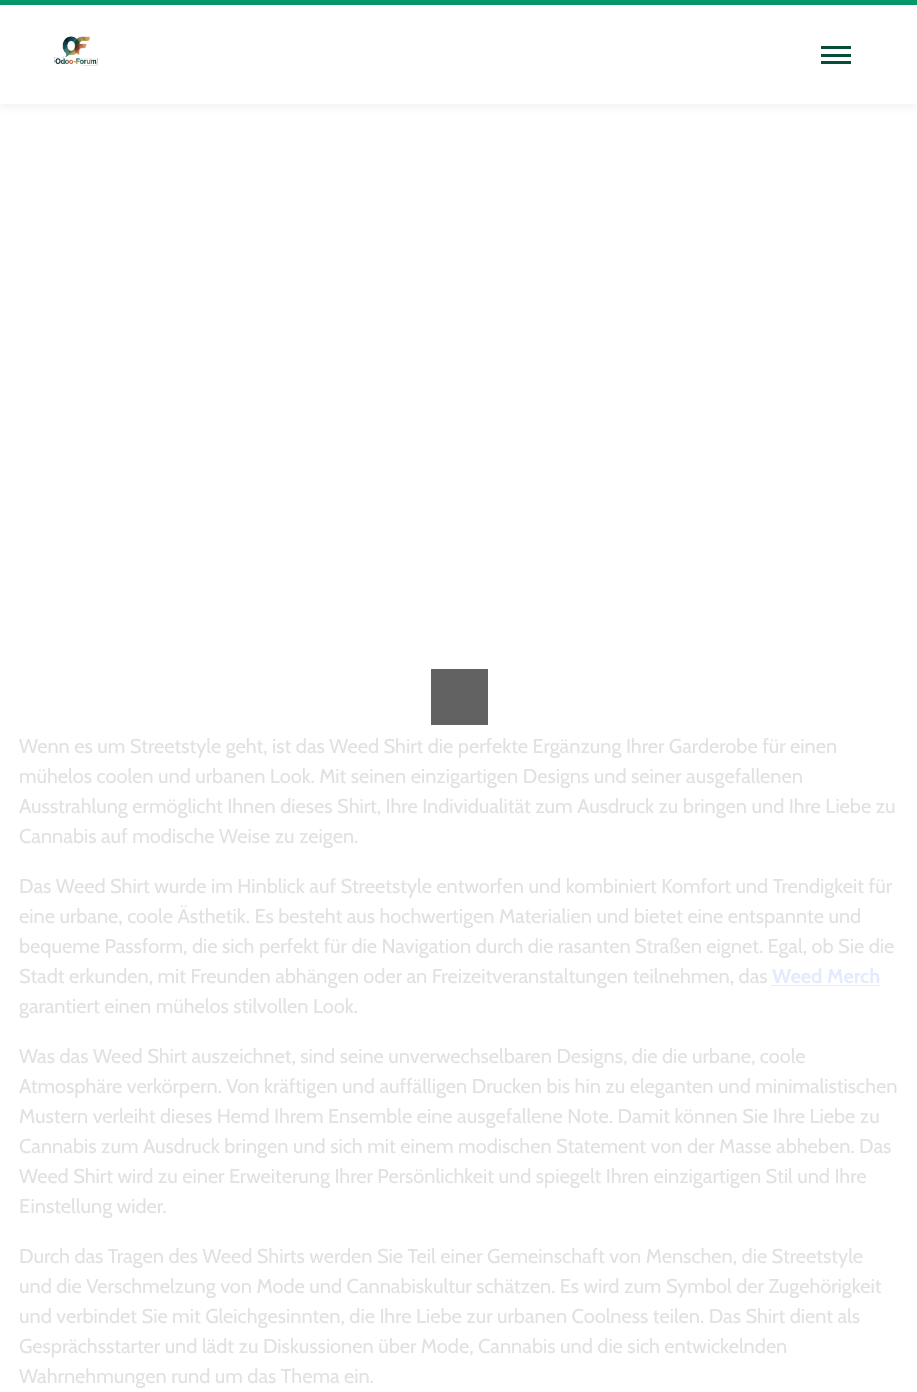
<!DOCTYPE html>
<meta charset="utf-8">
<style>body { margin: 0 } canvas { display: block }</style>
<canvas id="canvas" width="917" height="1392"></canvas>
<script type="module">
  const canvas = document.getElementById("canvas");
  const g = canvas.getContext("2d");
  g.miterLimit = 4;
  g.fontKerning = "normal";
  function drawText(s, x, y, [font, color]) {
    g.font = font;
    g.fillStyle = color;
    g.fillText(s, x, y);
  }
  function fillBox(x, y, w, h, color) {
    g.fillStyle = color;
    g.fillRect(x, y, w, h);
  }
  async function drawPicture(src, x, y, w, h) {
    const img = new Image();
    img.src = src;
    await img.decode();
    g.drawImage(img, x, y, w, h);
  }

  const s1 = ["20px Cabin", "#E1E1E2"];
  const s2 = ["bold 20px Cabin", "#E3EBFC"];

  fillBox(0, 0, 917, 1392, "#FFFFFF");
  g.fillStyle = "rgba(0, 0, 0, 0.05)";
  g.filter = "blur(4px)";
  g.beginPath();
  g.rect(1, 6, 915, 102);
  g.fill();
  g.filter = "none";
  fillBox(0, 5, 917, 99, "#FFFFFF");
  fillBox(0, 0, 917, 5, "#059669");
  await drawPicture("pic1.png", 53, 36, 45, 30);
  fillBox(821, 46, 30, 3, "#064E3B");
  fillBox(821, 54, 30, 3, "#064E3B");
  fillBox(821, 61, 30, 3, "#064E3B");
  fillBox(431, 669, 57, 56, "#626262");
  drawText("Wenn es um Streetstyle geht, ist das Weed Shirt die perfekte Ergänzung Ihrer Garderobe für einen", 19, 753, s1);
  drawText("mühelos coolen und urbanen Look. Mit seinen einzigartigen Designs und seiner ausgefallenen", 19, 783, s1);
  drawText("Ausstrahlung ermöglicht Ihnen dieses Shirt, Ihre Individualität zum Ausdruck zu bringen und Ihre Liebe zu", 19, 813, s1);
  drawText("Cannabis auf modische Weise zu zeigen.", 19, 843, s1);
  drawText("Das Weed Shirt wurde im Hinblick auf Streetstyle entworfen und kombiniert Komfort und Trendigkeit für", 19, 893, s1);
  drawText("eine urbane, coole Ästhetik. Es besteht aus hochwertigen Materialien und bietet eine entspannte und", 19, 923, s1);
  drawText("bequeme Passform, die sich perfekt für die Navigation durch die rasanten Straßen eignet. Egal, ob Sie die", 19, 953, s1);
  drawText("Stadt erkunden, mit Freunden abhängen oder an Freizeitveranstaltungen teilnehmen, das", 19, 983, s1);
  drawText("Weed Merch", 772, 983, s2);
  fillBox(771, 985, 109, 1, "#E3EBFC");
  drawText("garantiert einen mühelos stilvollen Look.", 19, 1013, s1);
  drawText("Was das Weed Shirt auszeichnet, sind seine unverwechselbaren Designs, die die urbane, coole", 19, 1063, s1);
  drawText("Atmosphäre verkörpern. Von kräftigen und auffälligen Drucken bis hin zu eleganten und minimalistischen", 19, 1093, s1);
  drawText("Mustern verleiht dieses Hemd Ihrem Ensemble eine ausgefallene Note. Damit können Sie Ihre Liebe zu", 19, 1123, s1);
  drawText("Cannabis zum Ausdruck bringen und sich mit einem modischen Statement von der Masse abheben. Das", 19, 1153, s1);
  drawText("Weed Shirt wird zu einer Erweiterung Ihrer Persönlichkeit und spiegelt Ihren einzigartigen Stil und Ihre", 19, 1183, s1);
  drawText("Einstellung wider.", 19, 1213, s1);
  drawText("Durch das Tragen des Weed Shirts werden Sie Teil einer Gemeinschaft von Menschen, die Streetstyle", 19, 1263, s1);
  drawText("und die Verschmelzung von Mode und Cannabiskultur schätzen. Es wird zum Symbol der Zugehörigkeit", 19, 1293, s1);
  drawText("und verbindet Sie mit Gleichgesinnten, die Ihre Liebe zur urbanen Coolness teilen. Das Shirt dient als", 19, 1323, s1);
  drawText("Gesprächsstarter und lädt zu Diskussionen über Mode, Cannabis und die sich entwickelnden", 19, 1353, s1);
  drawText("Wahrnehmungen rund um das Thema ein.", 19, 1383, s1);
</script>
